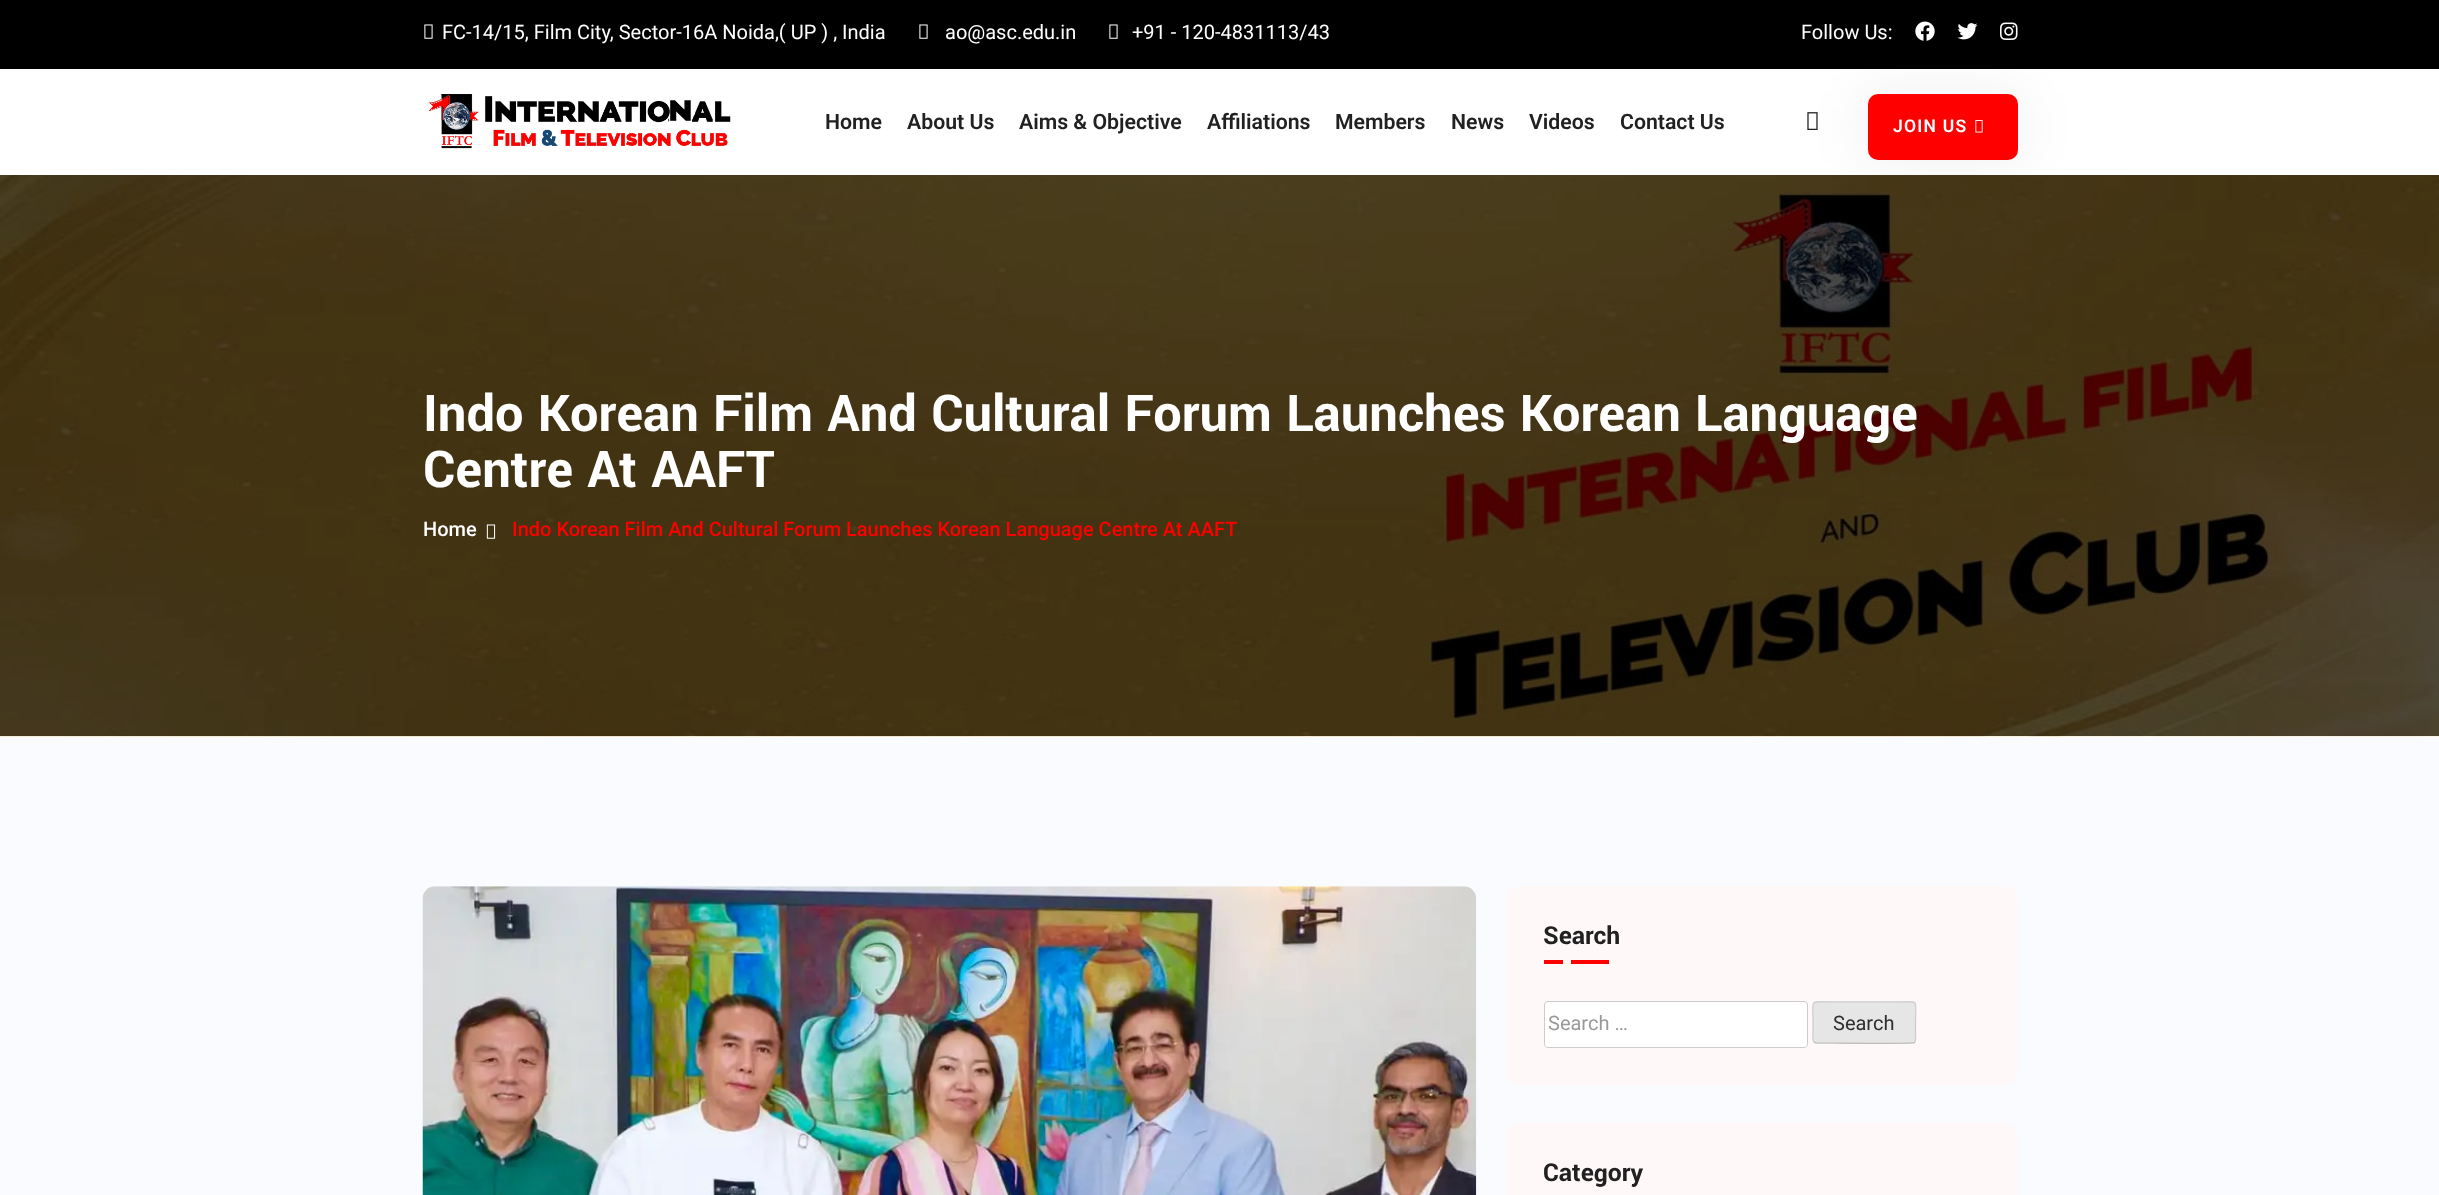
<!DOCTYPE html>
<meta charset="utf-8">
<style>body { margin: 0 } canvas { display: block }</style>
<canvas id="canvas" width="2439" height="1195"></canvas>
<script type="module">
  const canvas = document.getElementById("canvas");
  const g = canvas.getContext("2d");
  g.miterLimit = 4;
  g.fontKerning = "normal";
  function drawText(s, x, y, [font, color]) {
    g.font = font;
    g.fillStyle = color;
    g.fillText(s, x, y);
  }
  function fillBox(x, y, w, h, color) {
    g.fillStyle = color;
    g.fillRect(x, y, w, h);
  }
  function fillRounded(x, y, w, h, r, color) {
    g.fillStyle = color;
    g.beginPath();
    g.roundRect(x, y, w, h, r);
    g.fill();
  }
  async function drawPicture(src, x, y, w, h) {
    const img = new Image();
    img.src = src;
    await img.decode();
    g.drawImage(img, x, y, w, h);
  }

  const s1 = ["20px Roboto", "#FFFFFF"];
  const s2 = ["600 21.25px Roboto", "#212121"];
  const s3 = ["600 17.5px Roboto", "#FFFFFF"];
  const s4 = ["bold 56.25px Yantramanav", "#FFFFFF"];
  const s5 = ["500 20px Roboto", "#FFFFFF"];
  const s6 = ["500 20px Roboto", "#FE0000"];
  const s7 = ["bold 27.5px Yantramanav", "#212121"];
  const s8 = ["20px Roboto", "#999999"];
  const s9 = ["20px Roboto", "#2E2E2E"];

  fillBox(0, 0, 2439, 1195, "#FFFFFF");
  fillBox(0, 0, 2439, 69, "#000000");
  await drawPicture("pic1.png", 424, 24, 9, 15);
  drawText("FC-14/15, Film City, Sector-16A Noida,( UP ) , India", 442, 39, s1);
  await drawPicture("pic1.png", 919, 24, 9, 15);
  drawText("ao@asc.edu.in", 945, 39, s1);
  await drawPicture("pic1.png", 1109, 24, 9, 15);
  drawText("+91 - 120-4831113/43", 1132, 39, s1);
  drawText("Follow Us:", 1801, 39, s1);
  await drawPicture("pic2.png", 1915, 21, 20, 20);
  await drawPicture("pic3.png", 1957, 23, 21, 17);
  await drawPicture("pic4.png", 2000, 22, 18, 18);
  await drawPicture("pic5.png", 428, 94, 303, 55);
  drawText("Home", 825, 129, s2);
  drawText("About Us", 907, 129, s2);
  drawText("Aims & Objective", 1019, 129, s2);
  drawText("Affiliations", 1207, 129, s2);
  drawText("Members", 1335, 129, s2);
  drawText("News", 1451, 129, s2);
  drawText("Videos", 1529, 129, s2);
  drawText("Contact Us", 1620, 129, s2);
  await drawPicture("pic6.png", 1807, 112, 11, 18);
  fillBox(0, 736, 2439, 459, "#F9FBFE");
  await drawPicture("pic8.png", 0, 175, 2439, 562);
  g.fillStyle = "rgba(0, 0, 0, 0.05)";
  g.filter = "blur(25px)";
  g.beginPath();
  g.roundRect(1861, 88, 163, 78, 16);
  g.fill();
  g.filter = "none";
  fillRounded(1868, 94, 150, 66, 10, "#FE0000");
  g.letterSpacing = "1.25px";
  drawText("JOIN US", 1893, 132, s3);
  await drawPicture("pic7.png", 1975, 120, 8, 13);
  g.letterSpacing = "0px";
  drawText("Indo Korean Film And Cultural Forum Launches Korean Language", 423, 431, s4);
  drawText("Centre At AAFT", 423, 487, s4);
  drawText("Home", 423, 536, s5);
  await drawPicture("pic9.png", 486, 524, 10, 15);
  drawText("Indo Korean Film And Cultural Forum Launches Korean Language Centre At AAFT", 512, 536, s6);
  await drawPicture("pic10.png", 422, 886, 1055, 309);
  fillRounded(1506, 886, 512, 199, 13, "#FFF8F8");
  drawText("Search", 1543, 944, s7);
  fillBox(1544, 960, 19, 4, "#FE0000");
  fillBox(1571, 960, 38, 4, "#FE0000");
  g.fillStyle = "#FFFFFF";
  g.beginPath();
  g.roundRect(1544.5, 1001.5, 263, 46, 3.5);
  g.fill();
  g.strokeStyle = "#CCCCCC";
  g.stroke();
  drawText("Search …", 1548, 1030, s8);
  fillRounded(1813, 1001, 103, 43, 4, "#E6E6E6");
  g.beginPath();
  g.moveTo(1914.5, 1042);
  g.lineTo(1914.5, 1042.5);
  g.bezierCurveTo(1912.5, 1044, 1841, 1043, 1832.5, 1043);
  g.lineTo(1816, 1043);
  g.lineTo(1814, 1042);
  g.strokeStyle = "#BBBBBB";
  g.lineWidth = 1.2;
  g.stroke();
  g.beginPath();
  g.moveTo(1814, 1042);
  g.bezierCurveTo(1812, 1040.5, 1813, 1035.5, 1813, 1034);
  g.lineTo(1813, 1022.5);
  g.bezierCurveTo(1813, 998, 1808.5, 1002, 1832.5, 1002);
  g.lineTo(1896.5, 1002);
  g.bezierCurveTo(1920.5, 1002, 1915.5, 998, 1915.5, 1022.5);
  g.lineTo(1915.5, 1034);
  g.bezierCurveTo(1915.5, 1035.5, 1916.5, 1040.5, 1914.5, 1042);
  g.strokeStyle = "#CCCCCC";
  g.stroke();
  drawText("Search", 1833, 1030, s9);
  fillRounded(1506, 1123, 512, 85, 13, "#FFF8F8");
  drawText("Category", 1543, 1181, s7);
</script>
